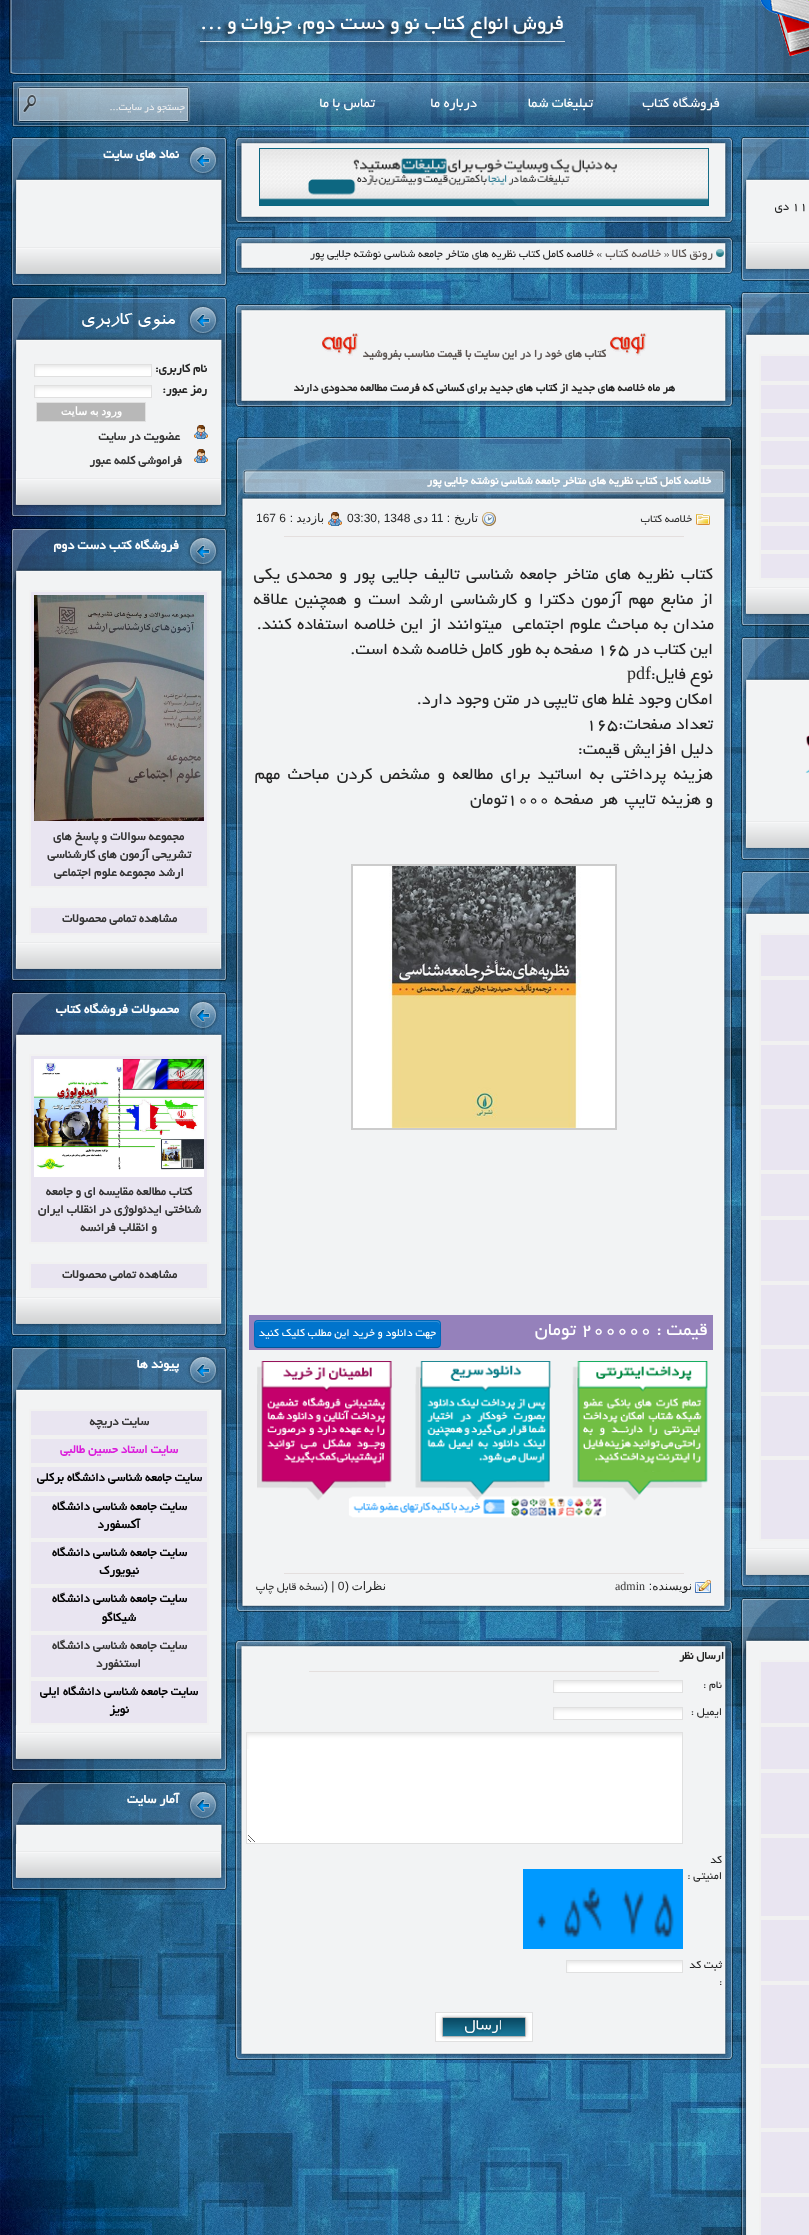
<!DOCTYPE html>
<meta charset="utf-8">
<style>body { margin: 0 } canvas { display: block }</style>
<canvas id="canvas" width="809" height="2235"></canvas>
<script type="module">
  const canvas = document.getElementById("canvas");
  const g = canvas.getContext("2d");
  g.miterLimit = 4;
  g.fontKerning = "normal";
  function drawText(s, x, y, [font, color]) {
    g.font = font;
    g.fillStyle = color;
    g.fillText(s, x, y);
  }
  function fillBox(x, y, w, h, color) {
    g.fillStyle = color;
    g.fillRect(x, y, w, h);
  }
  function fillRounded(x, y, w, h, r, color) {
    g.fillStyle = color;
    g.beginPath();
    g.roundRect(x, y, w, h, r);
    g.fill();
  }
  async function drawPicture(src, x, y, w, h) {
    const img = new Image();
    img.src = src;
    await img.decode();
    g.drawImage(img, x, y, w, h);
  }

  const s1 = ["15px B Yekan", "#FFFFFF"];
  const s2 = ["11px B Yekan", "#EEEEEE"];
  const s3 = ["13px B Yekan", "#252525"];
  const s4 = ["13px B Yekan", "#5C5552"];
  const s5 = ["12px B Yekan", "#252525"];
  const s6 = ["bold 12px B Yekan", "#5C5552"];
  const s7 = ["bold 12px B Yekan", "#252525"];
  const s8 = ["bold 12px B Yekan", "#FFFFFF"];
  const s9 = ["12px B Yekan", "#353535"];
  const s10 = ["12px DejaVu Sans", "#252525"];
  const s11 = ["12px Liberation Sans", "#252525"];
  const s12 = ["18px B Yekan", "#252525"];
  const s13 = ["18px Liberation Serif", "#252525"];
  const s14 = ["20px B Yekan", "#FFFFFF"];
  const s15 = ["12px B Yekan", "#FFFFFF"];
  const s16 = ["12px Liberation Serif", "#353535"];
  const s17 = ["bold 14px B Yekan", "#FFFFFF"];
  const s18 = ["bold 13px B Yekan", "#252525"];
  const s19 = ["bold 11px DejaVu Sans", "#FFFFFF"];
  const s20 = ["bold 13px B Yekan", "#353535"];
  const s21 = ["bold 13px B Yekan", "#DB1CDB"];
  const s22 = ["bold 13px B Yekan", "#000000"];

  fillBox(0, 0, 809, 2235, "#FFFFFF");
  await drawPicture("pic1.png", 0, 0, 809, 2235);
  await drawPicture("pic2.png", 9, 0, 800, 75);
  await drawPicture("pic3.png", 12, 81, 797, 46);
  g.direction = "rtl";
  drawText("فروشگاه کتاب", 720, 107, s1);
  drawText("تبلیغات شما", 593, 107, s1);
  drawText("درباره ما", 477, 107, s1);
  drawText("تماس با ما", 375, 107, s1);
  drawText("جستجو در سایت...", 185, 110, s2);
  await drawPicture("pic4.png", 741, 137, 68, 62);
  await drawPicture("pic5.png", 741, 199, 68, 36);
  g.direction = "ltr";
  drawText("11", 792, 210, s3);
  g.direction = "rtl";
  drawText("دی", 789, 210, s3);
  await drawPicture("pic6.png", 741, 235, 68, 46);
  await drawPicture("pic7.png", 741, 292, 68, 62);
  await drawPicture("pic8.png", 741, 354, 18, 226);
  g.fillStyle = "#E9E5F1";
  g.beginPath();
  g.rect(760, 355, 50, 27);
  g.fill();
  g.strokeStyle = "#F1F1F1";
  g.lineWidth = 2;
  g.stroke();
  g.beginPath();
  g.rect(760, 384, 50, 26);
  g.fill();
  g.stroke();
  g.beginPath();
  g.rect(760, 412, 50, 26);
  g.fill();
  g.stroke();
  g.beginPath();
  g.rect(760, 440, 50, 26);
  g.fill();
  g.stroke();
  g.beginPath();
  g.rect(760, 468, 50, 26);
  g.fill();
  g.stroke();
  g.beginPath();
  g.rect(760, 496, 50, 27);
  g.fill();
  g.stroke();
  g.beginPath();
  g.rect(760, 525, 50, 26);
  g.fill();
  g.stroke();
  g.beginPath();
  g.rect(760, 553, 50, 26);
  g.fill();
  g.stroke();
  await drawPicture("pic9.png", 741, 580, 68, 46);
  await drawPicture("pic10.png", 741, 637, 68, 62);
  await drawPicture("pic11.png", 741, 699, 68, 115);
  await drawPicture("pic12.png", 805, 735, 4, 38);
  await drawPicture("pic13.png", 741, 814, 68, 46);
  await drawPicture("pic14.png", 741, 871, 68, 62);
  await drawPicture("pic15.png", 741, 933, 18, 608);
  g.beginPath();
  g.rect(760, 934, 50, 43);
  g.fill();
  g.stroke();
  g.beginPath();
  g.rect(760, 979, 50, 63);
  g.fill();
  g.stroke();
  g.beginPath();
  g.rect(760, 1044, 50, 62);
  g.fill();
  g.stroke();
  g.beginPath();
  g.rect(760, 1108, 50, 63);
  g.fill();
  g.stroke();
  g.beginPath();
  g.rect(760, 1173, 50, 44);
  g.fill();
  g.stroke();
  g.beginPath();
  g.rect(760, 1219, 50, 63);
  g.fill();
  g.stroke();
  g.beginPath();
  g.rect(760, 1284, 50, 62);
  g.fill();
  g.stroke();
  g.beginPath();
  g.rect(760, 1348, 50, 45);
  g.fill();
  g.stroke();
  g.beginPath();
  g.rect(760, 1395, 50, 62);
  g.fill();
  g.stroke();
  g.beginPath();
  g.rect(760, 1459, 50, 81);
  g.fill();
  g.stroke();
  await drawPicture("pic16.png", 741, 1541, 68, 46);
  await drawPicture("pic17.png", 741, 1598, 68, 62);
  await drawPicture("pic18.png", 741, 1660, 18, 575);
  g.beginPath();
  g.rect(760, 1661, 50, 63);
  g.fill();
  g.stroke();
  g.beginPath();
  g.rect(760, 1726, 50, 44);
  g.fill();
  g.stroke();
  g.beginPath();
  g.rect(760, 1772, 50, 63);
  g.fill();
  g.stroke();
  g.beginPath();
  g.rect(760, 1837, 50, 80);
  g.fill();
  g.stroke();
  g.beginPath();
  g.rect(760, 1919, 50, 63);
  g.fill();
  g.stroke();
  g.beginPath();
  g.rect(760, 1984, 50, 81);
  g.fill();
  g.stroke();
  g.beginPath();
  g.rect(760, 2067, 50, 62);
  g.fill();
  g.stroke();
  g.beginPath();
  g.rect(760, 2131, 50, 63);
  g.fill();
  g.stroke();
  g.beginPath();
  g.rect(760, 2196, 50, 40);
  g.fill();
  g.stroke();
  await drawPicture("pic19.png", 235, 137, 498, 9);
  await drawPicture("pic20.png", 235, 146, 498, 68);
  await drawPicture("pic21.png", 259, 148, 450, 58);
  await drawPicture("pic22.png", 235, 214, 498, 9);
  await drawPicture("pic23.png", 235, 237, 498, 9);
  await drawPicture("pic24.png", 235, 246, 498, 19);
  await drawPicture("pic25.png", 716, 249, 8, 8);
  drawText("رونق کالا", 713, 257, s4);
  g.direction = "ltr";
  drawText("»", 664, 257, s5);
  g.direction = "rtl";
  drawText("خلاصه کتاب", 661, 257, s4);
  drawText("» خلاصه کامل کتاب نظریه های متاخر جامعه شناسی نوشته جلایی پور", 602, 257, s5);
  await drawPicture("pic26.png", 235, 265, 498, 9);
  await drawPicture("pic27.png", 235, 304, 498, 9);
  await drawPicture("pic28.png", 235, 313, 498, 85);
  await drawPicture("pic29.png", 610, 333, 37, 23);
  drawText("کتاب های خود را در این سایت با قیمت مناسب بفروشید", 606, 357, s6);
  await drawPicture("pic29.png", 322, 333, 37, 23);
  drawText("هر ماه خلاصه های جدید از کتاب های جدید برای کسانی که فرصت مطالعه محدودی دارند", 675, 391, s7);
  await drawPicture("pic30.png", 235, 398, 498, 9);
  await drawPicture("pic31.png", 236, 437, 496, 71);
  drawText("خلاصه کامل کتاب نظریه های متاخر جامعه شناسی نوشته جلایی پور", 711, 484, s8);
  await drawPicture("pic32.png", 236, 508, 496, 1091);
  await drawPicture("pic33.png", 696, 514, 14, 11);
  drawText("خلاصه کتاب", 692, 522, s9);
  await drawPicture("pic34.png", 482, 512, 14, 14);
  drawText("تاریخ", 478, 522, s10);
  drawText(":", 450, 522, s11);
  g.direction = "ltr";
  drawText("11", 431, 522, s11);
  g.direction = "rtl";
  drawText("دی", 428, 522, s10);
  g.direction = "ltr";
  drawText("03:30, 1348", 347, 522, s11);
  await drawPicture("pic35.png", 328, 512, 14, 14);
  g.direction = "rtl";
  drawText("بازدید", 324, 522, s10);
  drawText(":", 293, 522, s11);
  g.direction = "ltr";
  drawText("167 6", 256, 522, s11);
  fillBox(284, 536, 400, 1, "#E4DFDE");
  g.wordSpacing = "2.5px";
  g.direction = "rtl";
  drawText("کتاب نظریه های متاخر جامعه شناسی تالیف جلایی پور و محمدی یکی", 713, 579, s12);
  g.wordSpacing = "2.75px";
  drawText("از منابع مهم آزمون دکترا و کارشناسی ارشد است و همچنین علاقه", 713, 604, s12);
  g.wordSpacing = "1.25px";
  drawText("مندان به مباحث علوم اجتماعی  میتوانند از این خلاصه استفاده کنند.", 714, 629, s12);
  g.wordSpacing = "0px";
  drawText("این کتاب در", 713, 654, s12);
  g.direction = "ltr";
  drawText("۱۶۵", 597, 654, s12);
  g.direction = "rtl";
  drawText("صفحه به طور کامل خلاصه شده است.", 593, 654, s12);
  drawText("نوع فایل:", 713, 679, s12);
  g.direction = "ltr";
  drawText("pdf", 627, 679, s13);
  g.direction = "rtl";
  drawText("امکان وجود غلط های تایپی در متن وجود دارد.", 713, 704, s12);
  drawText("تعداد صفحات:", 713, 729, s12);
  g.direction = "ltr";
  drawText("۱۶۵", 586, 729, s12);
  g.direction = "rtl";
  drawText("دلیل افزایش قیمت:", 713, 754, s12);
  g.wordSpacing = "3.25px";
  drawText("هزینه پرداختی به اساتید برای مطالعه و مشخص کردن مباحث مهم", 713, 779, s12);
  g.wordSpacing = "0px";
  drawText("و", 713, 804, s12);
  g.wordSpacing = "2px";
  drawText("هزینه تایپ هر صفحه", 701, 804, s12);
  g.wordSpacing = "0px";
  g.direction = "ltr";
  drawText("۱۰۰۰", 507, 804, s12);
  g.direction = "rtl";
  drawText("تومان", 507, 804, s12);
  g.strokeStyle = "#CCCCCC";
  g.strokeRect(352, 865, 264, 264);
  await drawPicture("pic36.png", 353, 866, 262, 262);
  fillBox(249, 1315, 464, 35, "#9581BB");
  drawText("قیمت :", 708, 1335, s14);
  g.direction = "ltr";
  drawText("200000", 581, 1335, s14);
  g.direction = "rtl";
  drawText("تومان", 576, 1335, s14);
  fillRounded(254, 1320, 187, 28, 4, "#0074CC");
  g.fillStyle = "#3390D6";
  g.beginPath();
  g.moveTo(258, 1322);
  g.lineTo(437, 1322);
  g.lineTo(439, 1323);
  g.lineTo(440, 1325);
  g.bezierCurveTo(440, 1323, 439, 1321, 437, 1321);
  g.lineTo(257, 1321);
  g.bezierCurveTo(255, 1322, 255, 1323, 255, 1325);
  g.bezierCurveTo(255, 1323, 256, 1322, 258, 1322);
  g.closePath();
  g.fill();
  g.beginPath();
  g.moveTo(439.5, 1346.5);
  g.lineTo(437.5, 1347.5);
  g.lineTo(288, 1347.5);
  g.lineTo(258, 1347.5);
  g.lineTo(255.5, 1346.5);
  g.strokeStyle = "rgba(0, 0, 0, 0.25)";
  g.lineWidth = 1;
  g.stroke();
  g.beginPath();
  g.moveTo(255.5, 1346.5);
  g.bezierCurveTo(253.5, 1344, 254.5, 1336.5, 254.5, 1334);
  g.lineTo(254.5, 1327.5);
  g.bezierCurveTo(254.5, 1324.5, 254, 1320.5, 258, 1320.5);
  g.lineTo(437, 1320.5);
  g.bezierCurveTo(441, 1320.5, 440.5, 1324.5, 440.5, 1327.5);
  g.lineTo(440.5, 1334);
  g.bezierCurveTo(440.5, 1336.5, 441.5, 1344, 439.5, 1346.5);
  g.strokeStyle = "rgba(0, 0, 0, 0.1)";
  g.stroke();
  drawText("جهت دانلود و خرید این مطلب کلیک کنید", 436, 1336, s15);
  await drawPicture("pic37.png", 257, 1361, 451, 157);
  fillBox(284, 1573, 400, 1, "#E4DFDE");
  await drawPicture("pic38.png", 695, 1580, 16, 13);
  drawText("نويسنده", 692, 1590, s10);
  drawText(":", 652, 1590, s11);
  g.direction = "ltr";
  drawText("admin", 615, 1590, s16);
  g.direction = "rtl";
  drawText("نظرات", 386, 1590, s10);
  drawText("(", 349, 1590, s11);
  g.direction = "ltr";
  drawText(") | 0", 324, 1590, s11);
  g.direction = "rtl";
  drawText("نسخه قابل چاپ", 324, 1590, s9);
  await drawPicture("pic39.png", 236, 1599, 496, 13);
  await drawPicture("pic40.png", 235, 1640, 498, 9);
  await drawPicture("pic41.png", 235, 1649, 498, 402);
  drawText("ارسال نظر", 724, 1659, s7);
  fillBox(309, 1671, 350, 1, "#E4DFDE");
  drawText("نام :", 722, 1688, s5);
  await drawPicture("pic42.png", 554, 1681, 128, 11);
  g.strokeStyle = "#E0E0E0";
  g.strokeRect(553.5, 1680.5, 129, 12);
  drawText("ایمیل :", 722, 1715, s5);
  await drawPicture("pic42.png", 554, 1708, 128, 11);
  g.strokeRect(553.5, 1707.5, 129, 12);
  fillBox(247, 1749, 435, 94, "#FFFFFF");
  await drawPicture("pic43.png", 247, 1733, 435, 109);
  g.strokeRect(246.5, 1732.5, 436, 111);
  drawText("کد", 722, 1863, s5);
  drawText("امنیتی :", 722, 1879, s5);
  await drawPicture("pic44.png", 523, 1869, 160, 80);
  drawText("ثبت کد", 722, 1968, s5);
  g.direction = "ltr";
  drawText(":", 719, 1985, s5);
  await drawPicture("pic45.png", 567, 1961, 115, 11);
  g.strokeRect(566.5, 1960.5, 116, 12);
  await drawPicture("pic46.png", 436, 2013, 96, 28);
  g.strokeRect(435.5, 2012.5, 97, 29);
  await drawPicture("pic47.png", 235, 2051, 498, 9);
  await drawPicture("pic48.png", 11, 137, 216, 62);
  g.direction = "rtl";
  drawText("نماد های سایت", 179, 158, s17);
  await drawPicture("pic49.png", 11, 199, 216, 41);
  await drawPicture("pic50.png", 11, 240, 216, 46);
  await drawPicture("pic51.png", 11, 297, 216, 62);
  await drawPicture("pic52.png", 82, 313, 94, 17);
  await drawPicture("pic53.png", 11, 359, 216, 112);
  drawText("نام کاربري:", 207, 372, s18);
  await drawPicture("pic54.png", 35, 365, 116, 11);
  g.strokeRect(34.5, 364.5, 117, 12);
  drawText("رمز عبور:", 207, 393, s18);
  await drawPicture("pic54.png", 35, 386, 116, 11);
  g.strokeRect(34.5, 385.5, 117, 12);
  g.fillStyle = "#B8B8B8";
  g.beginPath();
  g.rect(36.5, 402.5, 109, 19);
  g.fill();
  g.stroke();
  g.wordSpacing = "-1px";
  drawText("ورود به سايت", 122, 415, s19);
  await drawPicture("pic35.png", 194, 425, 14, 14);
  g.wordSpacing = "0px";
  drawText("عضويت در سايت", 180, 440, s20);
  await drawPicture("pic35.png", 194, 449, 14, 14);
  drawText("فراموشی کلمه عبور", 182, 464, s20);
  await drawPicture("pic55.png", 11, 471, 216, 46);
  await drawPicture("pic56.png", 11, 528, 216, 62);
  drawText("فروشگاه کتب دست دوم", 179, 549, s17);
  await drawPicture("pic57.png", 11, 590, 216, 345);
  g.fillStyle = "#E9E5F1";
  g.beginPath();
  g.rect(30, 591, 178, 296);
  g.fill();
  g.strokeStyle = "#F1F1F1";
  g.lineWidth = 2;
  g.stroke();
  await drawPicture("pic58.png", 34, 595, 170, 226);
  drawText("مجموعه سوالات و پاسخ های", 184, 840, s20);
  drawText("تشریحی آزمون های کارشناسی", 191, 858, s20);
  drawText("ارشد مجموعه علوم اجتماعی", 184, 876, s20);
  g.fillStyle = "#E9E5F1";
  g.beginPath();
  g.rect(30, 907, 178, 27);
  g.fill();
  g.stroke();
  drawText("مشاهده تمامی محصولات", 177, 922, s20);
  await drawPicture("pic59.png", 11, 935, 216, 46);
  await drawPicture("pic60.png", 11, 992, 216, 62);
  drawText("محصولات فروشگاه کتاب", 179, 1013, s17);
  await drawPicture("pic61.png", 11, 1054, 216, 236);
  g.fillStyle = "#E9E5F1";
  g.beginPath();
  g.rect(30, 1055, 178, 188);
  g.fill();
  g.stroke();
  await drawPicture("pic62.png", 34, 1059, 170, 118);
  drawText("کتاب مطالعه مقایسه ای و جامعه", 192, 1195, s20);
  drawText("شناختی ایدئولوژی در انقلاب ایران", 201, 1213, s20);
  drawText("و انقلاب فرانسه", 157, 1231, s20);
  g.fillStyle = "#E9E5F1";
  g.beginPath();
  g.rect(30, 1263, 178, 26);
  g.fill();
  g.stroke();
  drawText("مشاهده تمامی محصولات", 177, 1278, s20);
  await drawPicture("pic63.png", 11, 1290, 216, 46);
  await drawPicture("pic64.png", 11, 1347, 216, 62);
  drawText("پیوند ها", 179, 1368, s17);
  await drawPicture("pic65.png", 11, 1409, 216, 316);
  g.fillStyle = "#E9E5F1";
  g.beginPath();
  g.rect(30, 1410, 178, 26);
  g.fill();
  g.stroke();
  drawText("سایت دریچه", 149, 1425, s20);
  g.fillStyle = "#E9E5F1";
  g.beginPath();
  g.rect(30, 1438, 178, 26);
  g.fill();
  g.stroke();
  drawText("سایت استاد حسین طالبی", 178, 1453, s21);
  g.fillStyle = "#E9E5F1";
  g.beginPath();
  g.rect(30, 1466, 178, 27);
  g.fill();
  g.stroke();
  drawText("سایت جامعه شناسی دانشگاه برکلی", 202, 1481, s22);
  g.fillStyle = "#E9E5F1";
  g.beginPath();
  g.rect(30, 1495, 178, 44);
  g.fill();
  g.stroke();
  drawText("سایت جامعه شناسی دانشگاه", 187, 1510, s22);
  drawText("آکسفورد", 140, 1528, s22);
  g.fillStyle = "#E9E5F1";
  g.beginPath();
  g.rect(30, 1541, 178, 44);
  g.fill();
  g.stroke();
  drawText("سایت جامعه شناسی دانشگاه", 187, 1556, s22);
  drawText("نیویورک", 139, 1574, s22);
  g.fillStyle = "#E9E5F1";
  g.beginPath();
  g.rect(30, 1587, 178, 45);
  g.fill();
  g.stroke();
  drawText("سایت جامعه شناسی دانشگاه", 187, 1602, s22);
  drawText("شیکاگو", 136, 1621, s22);
  g.fillStyle = "#E9E5F1";
  g.beginPath();
  g.rect(30, 1634, 178, 44);
  g.fill();
  g.stroke();
  drawText("سایت جامعه شناسی دانشگاه", 187, 1649, s20);
  drawText("استنفورد", 141, 1667, s20);
  g.fillStyle = "#E9E5F1";
  g.beginPath();
  g.rect(30, 1680, 178, 44);
  g.fill();
  g.stroke();
  drawText("سایت جامعه شناسی دانشگاه ایلی", 198, 1695, s22);
  drawText("نویز", 129, 1713, s22);
  await drawPicture("pic66.png", 11, 1725, 216, 46);
  await drawPicture("pic67.png", 11, 1782, 216, 62);
  drawText("آمار سایت", 179, 1803, s17);
  await drawPicture("pic68.png", 11, 1844, 216, 46);
</script>
